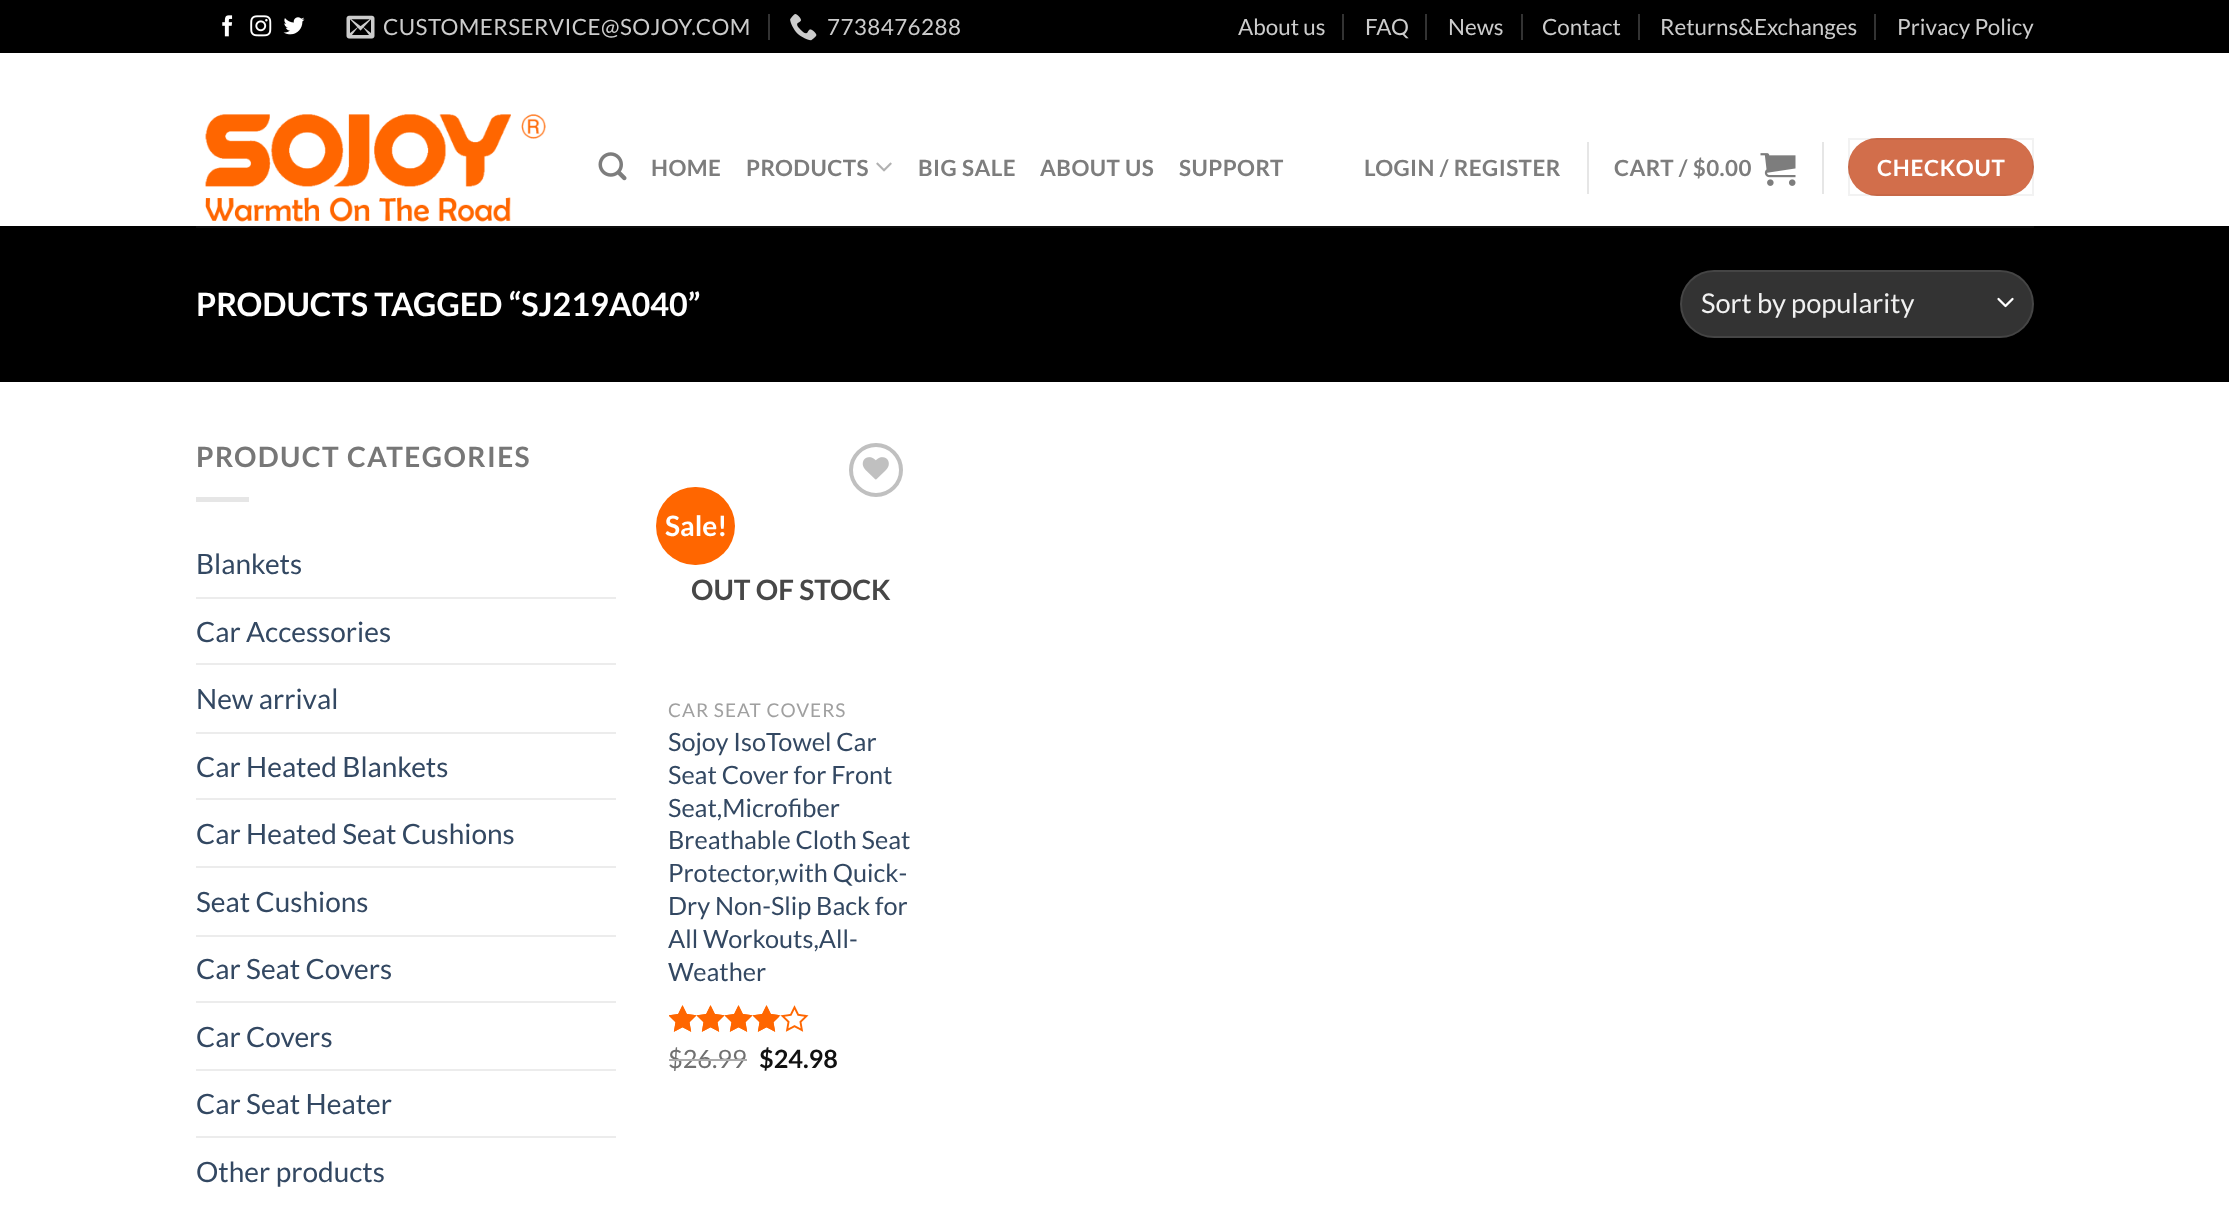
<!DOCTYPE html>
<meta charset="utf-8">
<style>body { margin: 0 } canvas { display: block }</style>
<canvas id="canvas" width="2229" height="1221"></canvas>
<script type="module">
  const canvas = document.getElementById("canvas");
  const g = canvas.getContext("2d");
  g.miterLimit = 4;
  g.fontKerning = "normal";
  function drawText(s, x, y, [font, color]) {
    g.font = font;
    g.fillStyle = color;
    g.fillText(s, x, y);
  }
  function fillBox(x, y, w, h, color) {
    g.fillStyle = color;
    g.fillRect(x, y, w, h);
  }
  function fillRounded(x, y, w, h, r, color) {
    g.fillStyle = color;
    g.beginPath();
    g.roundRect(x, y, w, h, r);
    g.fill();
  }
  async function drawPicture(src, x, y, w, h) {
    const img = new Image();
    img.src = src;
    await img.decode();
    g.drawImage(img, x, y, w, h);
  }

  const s1 = ["22.4px Lato", "#CCCCCC"];
  const s2 = ["bold 22.4px Lato", "#7D7D7D"];
  const s3 = ["bold 22.4px Lato", "#FFFFFF"];
  const s4 = ["bold 32.25px Lato", "#FFFFFF"];
  const s5 = ["27.25px Lato", "#F1F1F1"];
  const s6 = ["bold 28px Lato", "#777777"];
  const s7 = ["28px Lato", "#334862"];
  const s8 = ["bold 28px Lato", "#FFFFFF"];
  const s9 = ["bold 28px Lato", "#474747"];
  const s10 = ["19px Lato", "#A0A0A0"];
  const s11 = ["25.25px Lato", "#334862"];
  const s12 = ["25.25px Lato", "#707070"];
  const s13 = ["bold 25.25px Lato", "#111111"];

  fillBox(0, 0, 2229, 1221, "#FFFFFF");
  fillBox(0, 0, 2229, 53, "#000000");
  await drawPicture("pic1.png", 222, 15, 11, 22);
  await drawPicture("pic2.png", 250, 15, 22, 22);
  await drawPicture("pic3.png", 283, 17, 22, 18);
  await drawPicture("pic4.png", 346, 15, 29, 24);
  g.letterSpacing = "0.45px";
  drawText("CUSTOMERSERVICE@SOJOY.COM", 383, 35, s1);
  fillBox(768, 14, 2, 26, "#333333");
  await drawPicture("pic5.png", 790, 14, 27, 27);
  drawText("7738476288", 827, 35, s1);
  g.letterSpacing = "0px";
  drawText("About us", 1238, 35, s1);
  fillBox(1342, 14, 2, 26, "#333333");
  drawText("FAQ", 1365, 35, s1);
  fillBox(1425, 14, 2, 26, "#333333");
  drawText("News", 1448, 35, s1);
  fillBox(1521, 14, 2, 26, "#333333");
  drawText("Contact", 1542, 35, s1);
  fillBox(1638, 14, 2, 26, "#333333");
  drawText("Returns&Exchanges", 1660, 35, s1);
  fillBox(1874, 14, 2, 26, "#333333");
  drawText("Privacy Policy", 1897, 35, s1);
  await drawPicture("pic6.png", 205, 114, 341, 108);
  await drawPicture("pic7.png", 598, 152, 29, 29);
  g.letterSpacing = "0.45px";
  drawText("HOME", 651, 176, s2);
  drawText("PRODUCTS", 746, 176, s2);
  await drawPicture("pic8.png", 876, 162, 16, 10);
  drawText("BIG SALE", 918, 176, s2);
  drawText("ABOUT US", 1040, 176, s2);
  drawText("SUPPORT", 1179, 176, s2);
  drawText("LOGIN / REGISTER", 1364, 176, s2);
  fillBox(1587, 142, 2, 52, "#E6E6E6");
  drawText("CART / $0.00", 1614, 176, s2);
  await drawPicture("pic9.png", 1760, 153, 36, 33);
  fillBox(1822, 142, 2, 52, "#E6E6E6");
  fillRounded(1848, 138, 186, 58, 29, "#D26E4B");
  g.strokeStyle = "rgba(0, 0, 0, 0.05)";
  g.lineWidth = 2;
  g.strokeRect(1849, 139, 184, 56);
  g.letterSpacing = "0.75px";
  drawText("CHECKOUT", 1877, 176, s3);
  fillBox(0, 226, 2229, 156, "#000000");
  fillBox(196, 226, 1838, 2, "#0C0C0C");
  g.letterSpacing = "0px";
  drawText("PRODUCTS TAGGED “SJ219A040”", 196, 316, s4);
  fillRounded(1680, 270, 354, 68, 34, "#333333");
  g.beginPath();
  g.moveTo(1998.5, 299);
  g.lineTo(2005.5, 306);
  g.lineTo(2012.5, 299);
  g.strokeStyle = "#FFFFFF";
  g.lineWidth = 2.3;
  g.lineCap = "round";
  g.lineJoin = "round";
  g.stroke();
  g.beginPath();
  g.roundRect(1681, 271, 352, 66, 33);
  g.strokeStyle = "rgba(255, 255, 255, 0.09)";
  g.lineWidth = 2;
  g.lineJoin = "miter";
  g.stroke();
  drawText("Sort by popularity", 1701, 313, s5);
  g.letterSpacing = "1.4px";
  drawText("PRODUCT CATEGORIES", 196, 467, s6);
  fillBox(196, 497, 53, 5, "#E6E6E6");
  g.letterSpacing = "0px";
  drawText("Blankets", 196, 574, s7);
  fillBox(196, 597, 420, 2, "#ECECEC");
  drawText("Car Accessories", 196, 642, s7);
  fillBox(196, 663, 420, 2, "#ECECEC");
  drawText("New arrival", 196, 709, s7);
  fillBox(196, 732, 420, 2, "#ECECEC");
  drawText("Car Heated Blankets", 196, 777, s7);
  fillBox(196, 798, 420, 2, "#ECECEC");
  drawText("Car Heated Seat Cushions", 196, 844, s7);
  fillBox(196, 866, 420, 2, "#ECECEC");
  drawText("Seat Cushions", 196, 912, s7);
  fillBox(196, 935, 420, 2, "#ECECEC");
  drawText("Car Seat Covers", 196, 979, s7);
  fillBox(196, 1001, 420, 2, "#ECECEC");
  drawText("Car Covers", 196, 1047, s7);
  fillBox(196, 1069, 420, 2, "#ECECEC");
  drawText("Car Seat Heater", 196, 1114, s7);
  fillBox(196, 1136, 420, 2, "#ECECEC");
  drawText("Other products", 196, 1182, s7);
  fillRounded(656, 487, 79, 78, 39, "#FF6600");
  drawText("Sale!", 665, 536, s8);
  g.beginPath();
  g.arc(876, 470, 25, 0, Math.PI * 2);
  g.strokeStyle = "#C0C0C0";
  g.lineWidth = 4;
  g.stroke();
  await drawPicture("pic10.png", 862, 457, 27, 23);
  drawText("OUT OF STOCK", 691, 600, s9);
  g.letterSpacing = "1px";
  drawText("CAR SEAT COVERS", 668, 717, s10);
  g.letterSpacing = "0px";
  drawText("Sojoy IsoTowel Car", 668, 751, s11);
  drawText("Seat Cover for Front", 668, 784, s11);
  drawText("Seat,Microfiber", 668, 817, s11);
  drawText("Breathable Cloth Seat", 668, 849, s11);
  drawText("Protector,with Quick-", 668, 882, s11);
  drawText("Dry Non-Slip Back for", 668, 915, s11);
  drawText("All Workouts,All-", 668, 948, s11);
  drawText("Weather", 668, 981, s11);
  await drawPicture("pic11.png", 669, 1005, 140, 27);
  await drawPicture("pic12.png", 669, 1005, 110, 27);
  drawText("$26.99", 668, 1068, s12);
  fillBox(669, 1059, 78, 2, "#ADADAD");
  drawText("$24.98", 759, 1068, s13);
</script>
